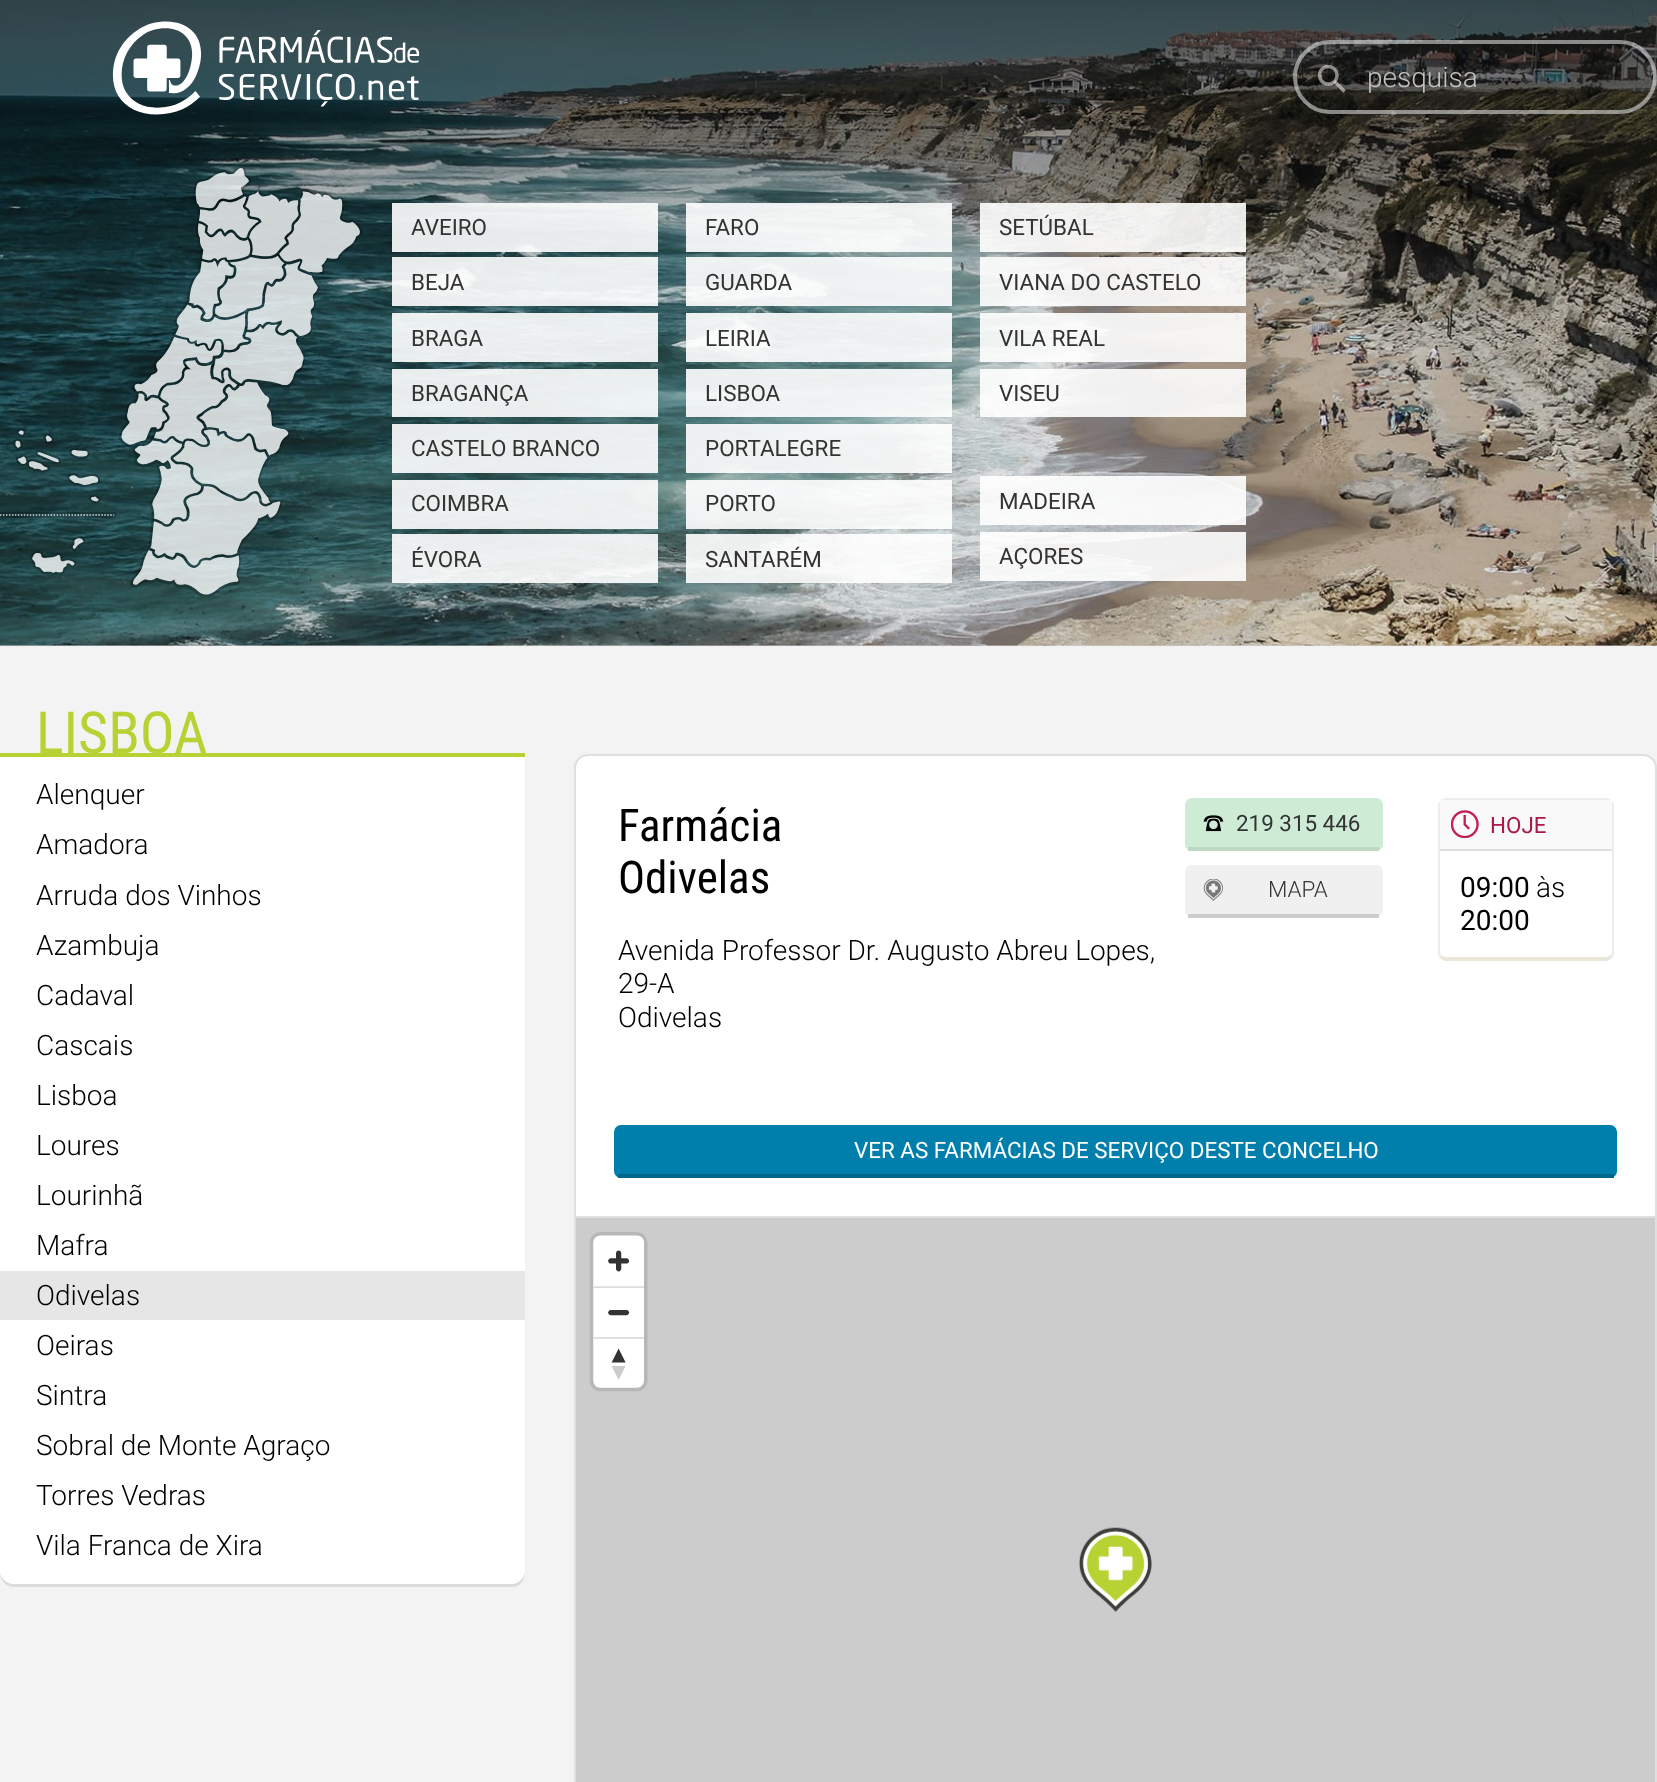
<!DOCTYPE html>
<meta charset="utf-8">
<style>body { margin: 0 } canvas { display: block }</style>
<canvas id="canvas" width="1657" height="1782"></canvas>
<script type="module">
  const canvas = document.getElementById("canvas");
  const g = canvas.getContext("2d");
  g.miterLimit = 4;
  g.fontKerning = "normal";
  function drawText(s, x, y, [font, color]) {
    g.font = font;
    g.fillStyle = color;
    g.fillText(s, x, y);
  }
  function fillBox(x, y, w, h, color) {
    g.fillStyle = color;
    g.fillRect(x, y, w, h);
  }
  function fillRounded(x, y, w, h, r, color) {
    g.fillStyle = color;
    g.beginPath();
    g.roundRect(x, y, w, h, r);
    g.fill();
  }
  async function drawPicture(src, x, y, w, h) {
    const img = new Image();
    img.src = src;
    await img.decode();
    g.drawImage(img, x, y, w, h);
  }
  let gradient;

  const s1 = ["300 28px Roboto", "#C2C2C2"];
  const s2 = ["22.4px Roboto", "#333333"];
  const s3 = ["58px Roboto Condensed", "#B7D333"];
  const s4 = ["300 28px Roboto", "#000000"];
  const s5 = ["45px Roboto Condensed", "#000000"];
  const s6 = ["300 22.4px Roboto", "#333333"];
  const s7 = ["22.4px Roboto", "#AB184B"];
  const s8 = ["28px Roboto", "#000000"];
  const s9 = ["22.4px Roboto", "#FFFFFF"];

  fillBox(0, 0, 1657, 1782, "#F3F3F3");
  fillBox(0, 645, 1657, 1, "#E7E7E7");
  await drawPicture("pic3.png", 0, 0, 1657, 646);
  gradient = g.createLinearGradient(829, 0, 829, 646);
  gradient.addColorStop(0, "rgba(0, 0, 0, 0.6)");
  gradient.addColorStop(0.5, "rgba(0, 0, 0, 0.1)");
  gradient.addColorStop(1, "rgba(0, 0, 0, 0.1)");
  g.fillStyle = gradient;
  g.fillRect(0, 0, 1657, 646);
  await drawPicture("pic1.png", 112, 21, 308, 94);
  fillRounded(1293, 40, 364, 74, 37, "rgba(0, 0, 0, 0.1)");
  g.beginPath();
  g.roundRect(1295, 42, 360, 70, 35);
  g.strokeStyle = "rgba(255, 255, 255, 0.5)";
  g.lineWidth = 4;
  g.stroke();
  await drawPicture("pic2.png", 1318, 65, 28, 28);
  drawText("pesquisa", 1367, 87, s1);
  await drawPicture("pic4.png", 0, 168, 362, 429);
  fillBox(392, 203, 266, 49, "rgba(255, 255, 255, 0.9)");
  drawText("AVEIRO", 411, 235, s2);
  fillBox(392, 257, 266, 49, "rgba(255, 255, 255, 0.9)");
  drawText("BEJA", 411, 290, s2);
  fillBox(392, 313, 266, 49, "rgba(255, 255, 255, 0.9)");
  drawText("BRAGA", 411, 346, s2);
  fillBox(392, 369, 266, 48, "rgba(255, 255, 255, 0.9)");
  drawText("BRAGANÇA", 411, 401, s2);
  fillBox(392, 424, 266, 49, "rgba(255, 255, 255, 0.9)");
  drawText("CASTELO BRANCO", 411, 456, s2);
  fillBox(392, 480, 266, 49, "rgba(255, 255, 255, 0.9)");
  drawText("COIMBRA", 411, 511, s2);
  fillBox(392, 534, 266, 49, "rgba(255, 255, 255, 0.9)");
  drawText("ÉVORA", 411, 567, s2);
  fillBox(686, 203, 266, 49, "rgba(255, 255, 255, 0.9)");
  drawText("FARO", 705, 235, s2);
  fillBox(686, 257, 266, 49, "rgba(255, 255, 255, 0.9)");
  drawText("GUARDA", 705, 290, s2);
  fillBox(686, 313, 266, 49, "rgba(255, 255, 255, 0.9)");
  drawText("LEIRIA", 705, 346, s2);
  fillBox(686, 369, 266, 48, "rgba(255, 255, 255, 0.9)");
  drawText("LISBOA", 705, 401, s2);
  fillBox(686, 424, 266, 49, "rgba(255, 255, 255, 0.9)");
  drawText("PORTALEGRE", 705, 456, s2);
  fillBox(686, 480, 266, 49, "rgba(255, 255, 255, 0.9)");
  drawText("PORTO", 705, 511, s2);
  fillBox(686, 534, 266, 49, "rgba(255, 255, 255, 0.9)");
  drawText("SANTARÉM", 705, 567, s2);
  fillBox(980, 203, 266, 49, "rgba(255, 255, 255, 0.9)");
  drawText("SETÚBAL", 999, 235, s2);
  fillBox(980, 257, 266, 49, "rgba(255, 255, 255, 0.9)");
  drawText("VIANA DO CASTELO", 999, 290, s2);
  fillBox(980, 313, 266, 49, "rgba(255, 255, 255, 0.9)");
  drawText("VILA REAL", 999, 346, s2);
  fillBox(980, 369, 266, 48, "rgba(255, 255, 255, 0.9)");
  drawText("VISEU", 999, 401, s2);
  fillBox(980, 476, 266, 49, "rgba(255, 255, 255, 0.9)");
  drawText("MADEIRA", 999, 509, s2);
  fillBox(980, 532, 266, 49, "rgba(255, 255, 255, 0.9)");
  drawText("AÇORES", 999, 564, s2);
  g.fillStyle = "#DBDBDB";
  g.beginPath();
  g.moveTo(0, 1570);
  g.bezierCurveTo(0, 1579, 4, 1587, 14, 1587);
  g.lineTo(514, 1587);
  g.bezierCurveTo(523, 1585, 525, 1578, 525, 1570);
  g.bezierCurveTo(525, 1577, 519, 1584, 511, 1584);
  g.lineTo(14, 1584);
  g.bezierCurveTo(6, 1584, 0, 1577, 0, 1570);
  g.closePath();
  g.fill();
  g.fillStyle = "#FFFFFF";
  g.beginPath();
  g.roundRect(0, 756, 525, 828, [0, 0, 14, 14]);
  g.fill();
  fillBox(0, 753, 525, 4, "#B7D333");
  drawText("LISBOA", 36, 753, s3);
  drawText("Alenquer", 36, 804, s4);
  drawText("Amadora", 36, 854, s4);
  drawText("Arruda dos Vinhos", 36, 905, s4);
  drawText("Azambuja", 36, 955, s4);
  drawText("Cadaval", 36, 1005, s4);
  drawText("Cascais", 36, 1055, s4);
  drawText("Lisboa", 36, 1105, s4);
  drawText("Loures", 36, 1155, s4);
  drawText("Lourinhã", 36, 1205, s4);
  drawText("Mafra", 36, 1255, s4);
  fillBox(0, 1271, 525, 49, "#E6E6E6");
  drawText("Odivelas", 36, 1305, s4);
  drawText("Oeiras", 36, 1355, s4);
  drawText("Sintra", 36, 1405, s4);
  drawText("Sobral de Monte Agraço", 36, 1455, s4);
  drawText("Torres Vedras", 36, 1505, s4);
  drawText("Vila Franca de Xira", 36, 1555, s4);
  g.fillStyle = "#FFFFFF";
  g.beginPath();
  g.moveTo(588, 756);
  g.lineTo(1643, 756);
  g.bezierCurveTo(1650, 756, 1656, 761, 1656, 768);
  g.lineTo(1656, 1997);
  g.bezierCurveTo(1656, 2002, 1650, 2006, 1643, 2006);
  g.lineTo(588, 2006);
  g.bezierCurveTo(581, 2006, 576, 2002, 576, 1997);
  g.lineTo(576, 768);
  g.bezierCurveTo(576, 761, 581, 756, 588, 756);
  g.closePath();
  g.fill();
  g.beginPath();
  g.roundRect(575, 755, 1081, 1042, 13);
  g.strokeStyle = "#DFDFDF";
  g.lineWidth = 2;
  g.stroke();
  drawText("Farmácia", 618, 841, s5);
  drawText("Odivelas", 618, 893, s5);
  drawText("Avenida Professor Dr. Augusto Abreu Lopes,", 618, 960, s4);
  drawText("29-A", 618, 993, s4);
  drawText("Odivelas", 618, 1027, s4);
  fillRounded(1185, 798, 198, 53, 7, "#CEECD5");
  fillBox(1188, 847, 191, 4, "#BDD9C3");
  await drawPicture("pic5.png", 1203, 815, 21, 17);
  drawText("219 315 446", 1236, 831, s2);
  fillRounded(1185, 865, 198, 52, 7, "#F0F0F0");
  fillBox(1188, 914, 191, 4, "#CCCCCC");
  await drawPicture("pic6.png", 1203, 879, 20, 22);
  drawText("MAPA", 1268, 897, s6);
  g.fillStyle = "#EDEDED";
  g.beginPath();
  g.moveTo(1447, 798);
  g.bezierCurveTo(1445, 798, 1442, 799, 1441, 800);
  g.lineTo(1442, 802);
  g.lineTo(1446, 800);
  g.lineTo(1606, 800);
  g.lineTo(1610, 802);
  g.lineTo(1611, 800);
  g.bezierCurveTo(1610, 799, 1607, 798, 1605, 798);
  g.closePath();
  g.fill();
  g.beginPath();
  g.moveTo(1614, 955);
  g.lineTo(1612, 958);
  g.lineTo(1611, 955);
  g.lineTo(1612, 952);
  g.lineTo(1612, 805);
  g.bezierCurveTo(1612, 804, 1611, 803, 1610, 802);
  g.lineTo(1611, 800);
  g.lineTo(1614, 804);
  g.closePath();
  g.fill();
  g.fillStyle = "#E8E7DA";
  g.beginPath();
  g.moveTo(1445, 961);
  g.bezierCurveTo(1443, 960, 1441, 959, 1440, 958);
  g.lineTo(1441, 955);
  g.bezierCurveTo(1443, 956, 1444, 957, 1446, 957);
  g.lineTo(1606, 957);
  g.lineTo(1611, 955);
  g.lineTo(1612, 958);
  g.bezierCurveTo(1611, 959, 1609, 960, 1607, 961);
  g.closePath();
  g.fill();
  g.fillStyle = "#EDEDED";
  g.beginPath();
  g.moveTo(1438, 804);
  g.lineTo(1441, 800);
  g.lineTo(1442, 802);
  g.bezierCurveTo(1441, 803, 1440, 804, 1440, 805);
  g.lineTo(1440, 952);
  g.lineTo(1441, 955);
  g.lineTo(1440, 958);
  g.lineTo(1438, 955);
  g.closePath();
  g.fill();
  fillBox(1440, 800, 172, 49, "#F9F9F9");
  fillBox(1440, 849, 172, 2, "#DFDFDF");
  await drawPicture("pic7.png", 1451, 810, 28, 28);
  drawText("HOJE", 1490, 833, s7);
  drawText("09:00", 1460, 897, s8);
  drawText("às", 1536, 897, s4);
  drawText("20:00", 1460, 930, s8);
  fillRounded(614, 1125, 1003, 53, 7, "#007FAD");
  fillBox(618, 1174, 996, 4, "#00678C");
  drawText("VER AS FARMÁCIAS DE SERVIÇO DESTE CONCELHO", 854, 1158, s9);
  fillBox(576, 1216, 1080, 2, "#DFDFDF");
  await drawPicture("pic8.png", 576, 1218, 1079, 564);
</script>
